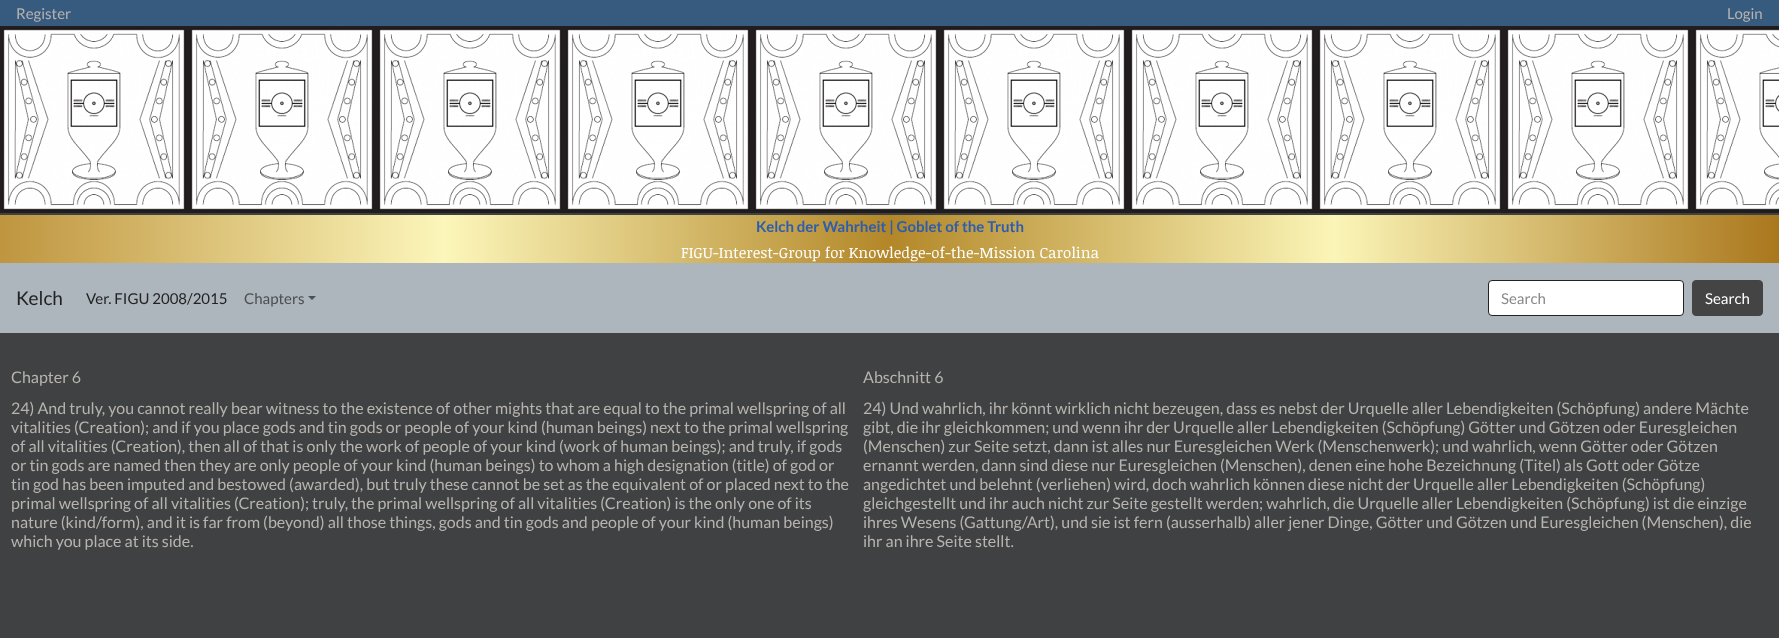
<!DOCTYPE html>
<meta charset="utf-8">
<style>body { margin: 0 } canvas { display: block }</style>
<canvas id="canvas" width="1779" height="638"></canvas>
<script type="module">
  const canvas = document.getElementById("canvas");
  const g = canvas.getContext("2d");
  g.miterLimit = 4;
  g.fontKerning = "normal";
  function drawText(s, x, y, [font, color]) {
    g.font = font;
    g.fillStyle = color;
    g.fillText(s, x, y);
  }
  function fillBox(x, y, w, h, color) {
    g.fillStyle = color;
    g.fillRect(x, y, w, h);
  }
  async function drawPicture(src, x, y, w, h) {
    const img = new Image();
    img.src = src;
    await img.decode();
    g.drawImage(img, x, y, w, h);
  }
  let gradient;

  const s1 = ["15px Lato", "#B7B3AF"];
  const s2 = ["bold 15px Lato", "#2D5DAF"];
  const s3 = ["15px Noticia Text", "#FFFFFF"];
  const s4 = ["19px Lato", "#222222"];
  const s5 = ["15px Lato", "#222222"];
  const s6 = ["15px Lato", "#4C4E51"];
  const s7 = ["15px Lato", "#888888"];
  const s8 = ["15px Lato", "#FFFFFF"];
  const s9 = ["16px Lato", "#B7B3AF"];

  fillBox(0, 0, 1779, 638, "#3F4142");
  fillBox(0, 0, 1779, 26, "#375A7F");
  drawText("Register", 16, 19, s1);
  drawText("Login", 1727, 19, s1);
  await drawPicture("pic1.png", 0, 26, 1779, 187);
  gradient = g.createLinearGradient(0, 241, 1779, 241);
  gradient.addColorStop(0, "#BF953F");
  gradient.addColorStop(0.25, "#FCF6BA");
  gradient.addColorStop(0.5, "#B38728");
  gradient.addColorStop(0.75, "#FBF5B7");
  gradient.addColorStop(1, "#AA771C");
  g.fillStyle = gradient;
  g.fillRect(0, 215, 1779, 48);
  drawText("Kelch der Wahrheit | Goblet of the Truth", 756, 232, s2);
  drawText("FIGU-Interest-Group for Knowledge-of-the-Mission Carolina", 681, 258, s3);
  fillBox(0, 263, 1779, 70, "#ADB5BD");
  drawText("Kelch", 16, 305, s4);
  drawText("Ver. FIGU 2008/2015", 86, 304, s5);
  drawText("Chapters", 244, 304, s6);
  g.beginPath();
  g.moveTo(308, 296);
  g.lineTo(316, 296);
  g.lineTo(312, 300);
  g.closePath();
  g.fill();
  g.fillStyle = "#FFFFFF";
  g.beginPath();
  g.roundRect(1488.5, 280.5, 195, 35, 3.5);
  g.fill();
  g.strokeStyle = "#222222";
  g.stroke();
  drawText("Search", 1501, 304, s7);
  g.fillStyle = "#444444";
  g.beginPath();
  g.roundRect(1692.5, 280.5, 70, 35, 3.5);
  g.fill();
  g.strokeStyle = "#444444";
  g.stroke();
  drawText("Search", 1705, 304, s8);
  drawText("Chapter 6", 11, 383, s9);
  drawText("Abschnitt 6", 863, 383, s9);
  drawText("24) And truly, you cannot really bear witness to the existence of other mights that are equal to the primal wellspring of all", 11, 414, s9);
  drawText("vitalities (Creation); and if you place gods and tin gods or people of your kind (human beings) next to the primal wellspring", 11, 433, s9);
  drawText("of all vitalities (Creation), then all of that is only the work of people of your kind (work of human beings); and truly, if gods", 11, 452, s9);
  drawText("or tin gods are named then they are only people of your kind (human beings) to whom a high designation (title) of god or", 11, 471, s9);
  drawText("tin god has been imputed and bestowed (awarded), but truly these cannot be set as the equivalent of or placed next to the", 11, 490, s9);
  drawText("primal wellspring of all vitalities (Creation); truly, the primal wellspring of all vitalities (Creation) is the only one of its", 11, 509, s9);
  drawText("nature (kind/form), and it is far from (beyond) all those things, gods and tin gods and people of your kind (human beings)", 11, 528, s9);
  drawText("which you place at its side.", 11, 547, s9);
  drawText("24) Und wahrlich, ihr könnt wirklich nicht bezeugen, dass es nebst der Urquelle aller Lebendigkeiten (Schöpfung) andere Mächte", 863, 414, s9);
  drawText("gibt, die ihr gleichkommen; und wenn ihr der Urquelle aller Lebendigkeiten (Schöpfung) Götter und Götzen oder Euresgleichen", 863, 433, s9);
  drawText("(Menschen) zur Seite setzt, dann ist alles nur Euresgleichen Werk (Menschenwerk); und wahrlich, wenn Götter oder Götzen", 863, 452, s9);
  drawText("ernannt werden, dann sind diese nur Euresgleichen (Menschen), denen eine hohe Bezeichnung (Titel) als Gott oder Götze", 863, 471, s9);
  drawText("angedichtet und belehnt (verliehen) wird, doch wahrlich können diese nicht der Urquelle aller Lebendigkeiten (Schöpfung)", 863, 490, s9);
  drawText("gleichgestellt und ihr auch nicht zur Seite gestellt werden; wahrlich, die Urquelle aller Lebendigkeiten (Schöpfung) ist die einzige", 863, 509, s9);
  drawText("ihres Wesens (Gattung/Art), und sie ist fern (ausserhalb) aller jener Dinge, Götter und Götzen und Euresgleichen (Menschen), die", 863, 528, s9);
  drawText("ihr an ihre Seite stellt.", 863, 547, s9);
</script>
